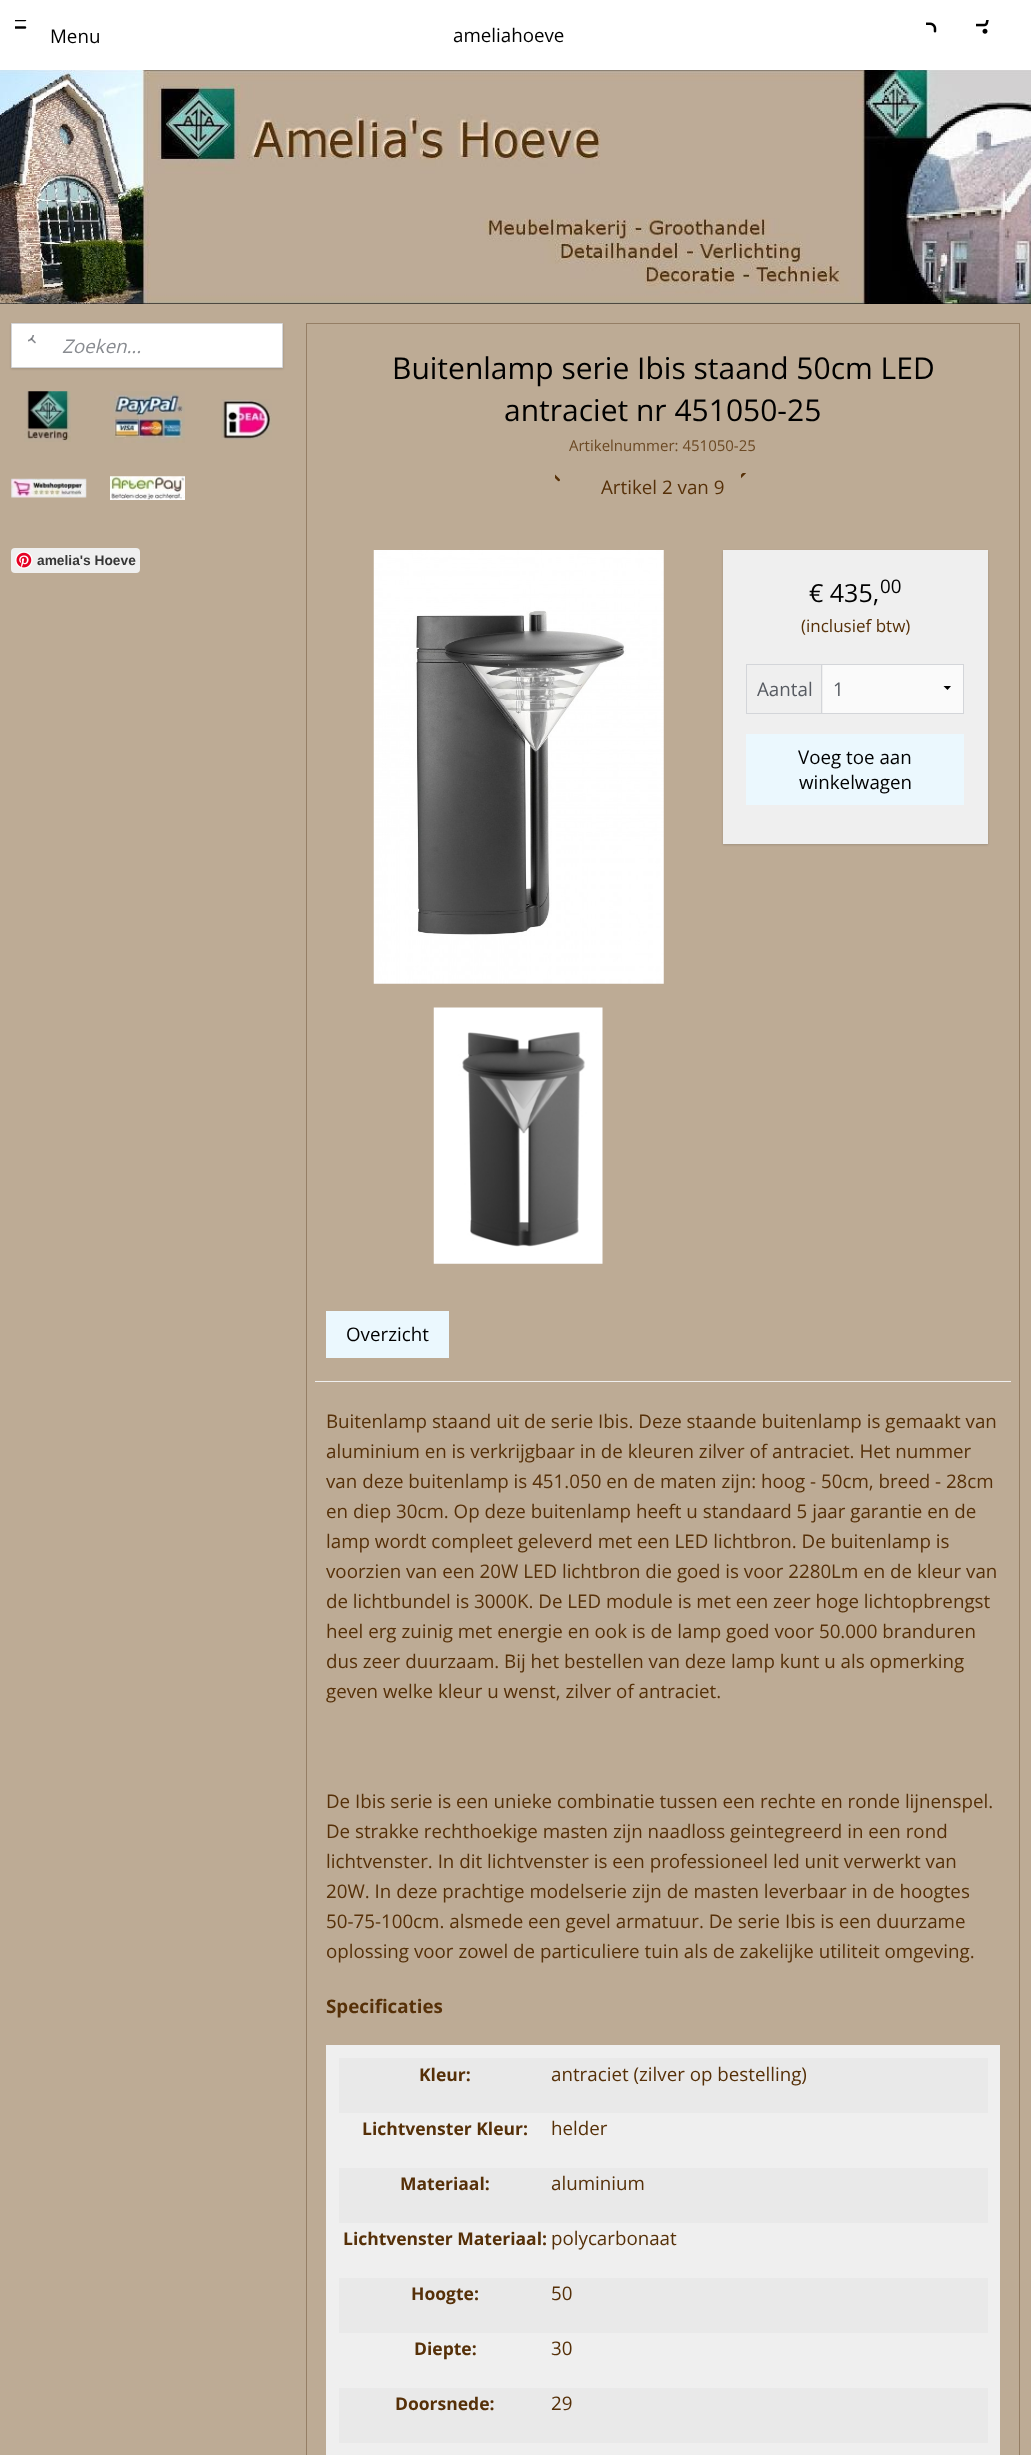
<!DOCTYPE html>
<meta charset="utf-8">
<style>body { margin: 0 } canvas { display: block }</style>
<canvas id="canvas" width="1031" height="2455"></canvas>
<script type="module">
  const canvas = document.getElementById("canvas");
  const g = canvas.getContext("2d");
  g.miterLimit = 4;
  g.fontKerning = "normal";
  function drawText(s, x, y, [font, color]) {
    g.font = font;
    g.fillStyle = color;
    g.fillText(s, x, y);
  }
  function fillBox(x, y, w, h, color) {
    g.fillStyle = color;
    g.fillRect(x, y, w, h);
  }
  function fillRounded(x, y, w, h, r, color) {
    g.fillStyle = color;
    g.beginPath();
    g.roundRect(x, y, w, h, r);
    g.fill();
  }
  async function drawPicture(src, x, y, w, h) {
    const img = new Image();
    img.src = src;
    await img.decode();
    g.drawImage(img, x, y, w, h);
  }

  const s1 = ["18.75px Open Sans", "#000000"];
  const s2 = ["italic 18.75px Open Sans", "#898C91"];
  const s3 = ["bold 13.75px Liberation Sans", "#363636"];
  const s4 = ["30px Open Sans", "#000000"];
  const s5 = ["15px Open Sans", "#6B4924"];
  const s6 = ["18.75px Open Sans", "#563008"];
  const s7 = ["25px Open Sans", "#000000"];
  const s8 = ["17px Open Sans", "#563008"];
  const s9 = ["18.75px Open Sans", "#575B62"];
  const s10 = ["bold 18.75px Open Sans", "#563008"];
  const s11 = ["bold 17.5px Open Sans", "#563008"];

  fillBox(0, 0, 1031, 2455, "#000000");
  fillBox(0, 0, 1031, 70, "#FFFFFF");
  await drawPicture("pic1.png", 15, 20, 12, 9);
  drawText("Menu", 50, 43, s1);
  drawText("ameliahoeve", 453, 42, s1);
  await drawPicture("pic2.png", 926, 22, 11, 11);
  await drawPicture("pic3.png", 976, 20, 13, 14);
  await drawPicture("pic4.png", 0, 70, 1031, 234);
  fillBox(0, 304, 1031, 2151, "#BDAB95");
  g.fillStyle = "rgba(0, 0, 0, 0.15)";
  g.filter = "blur(1px)";
  g.beginPath();
  g.rect(11, 324, 272, 45);
  g.fill();
  g.filter = "none";
  g.fillStyle = "#FFFFFF";
  g.beginPath();
  g.rect(11.5, 323.5, 271, 44);
  g.fill();
  g.strokeStyle = "#D3D5D9";
  g.stroke();
  await drawPicture("pic5.png", 28, 335, 8, 9);
  drawText("Zoeken...", 62, 353, s2);
  await drawPicture("pic6.png", 24, 391, 47, 51);
  await drawPicture("pic7.png", 110, 391, 75, 52);
  await drawPicture("pic8.png", 221, 399, 51, 41);
  await drawPicture("pic9.png", 11, 478, 76, 20);
  await drawPicture("pic10.png", 110, 476, 75, 24);
  fillRounded(11, 548, 129, 25, 4, "#EFEFEF");
  await drawPicture("pic11.png", 15, 551, 18, 18);
  drawText("amelia's Hoeve", 37, 565, s3);
  g.strokeStyle = "#957E65";
  g.strokeRect(306.5, 323.5, 713, 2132);
  drawText("Buitenlamp serie Ibis staand 50cm LED", 392, 379, s4);
  drawText("antraciet nr 451050-25", 504, 421, s4);
  drawText("Artikelnummer: 451050-25", 569, 451, s5);
  await drawPicture("pic12.png", 555, 474, 5, 8);
  await drawPicture("pic13.png", 741, 473, 5, 6);
  drawText("Artikel 2 van 9", 601, 494, s6);
  await drawPicture("pic14.png", 373, 550, 291, 434);
  await drawPicture("pic15.png", 433, 1007, 170, 257);
  g.fillStyle = "rgba(0, 0, 0, 0.15)";
  g.filter = "blur(1px)";
  g.beginPath();
  g.rect(723, 551, 265, 294);
  g.fill();
  g.filter = "none";
  fillBox(723, 550, 265, 294, "#EFEFEF");
  drawText("€ 435,", 809, 602, s7);
  drawText("00", 880, 593, s1);
  drawText("(inclusief btw)", 801, 632, s8);
  fillBox(821, 664, 1, 49, "#D3D5D9");
  fillBox(746, 664, 218, 1, "#D3D5D9");
  fillBox(963, 664, 1, 50, "#D3D5D9");
  fillBox(746, 713, 218, 1, "#D3D5D9");
  fillBox(746, 664, 1, 50, "#D3D5D9");
  drawText("Aantal", 757, 696, s9);
  fillBox(823, 665, 140, 48, "#FAFAFA");
  g.fillStyle = "#000000";
  g.beginPath();
  g.moveTo(951, 686);
  g.lineTo(947.5, 690);
  g.lineTo(943.5, 686);
  g.closePath();
  g.fill();
  drawText("1", 833, 696, s9);
  fillBox(746, 734, 218, 71, "#EBF8FE");
  drawText("Voeg toe aan", 798, 764, s1);
  drawText("winkelwagen", 799, 789, s1);
  fillBox(326, 1311, 123, 47, "#EBF8FE");
  drawText("Overzicht", 346, 1341, s1);
  fillBox(315, 1381, 696, 1, "#EFEFEF");
  drawText("Buitenlamp staand uit de serie Ibis. Deze staande buitenlamp is gemaakt van", 326, 1428, s6);
  drawText("aluminium en is verkrijgbaar in de kleuren zilver of antraciet. Het nummer", 326, 1458, s6);
  drawText("van deze buitenlamp is 451.050 en de maten zijn: hoog - 50cm, breed - 28cm", 326, 1488, s6);
  drawText("en diep 30cm. Op deze buitenlamp heeft u standaard 5 jaar garantie en de", 326, 1518, s6);
  drawText("lamp wordt compleet geleverd met een LED lichtbron. De buitenlamp is", 326, 1548, s6);
  drawText("voorzien van een 20W LED lichtbron die goed is voor 2280Lm en de kleur van", 326, 1578, s6);
  drawText("de lichtbundel is 3000K. De LED module is met een zeer hoge lichtopbrengst", 326, 1608, s6);
  drawText("heel erg zuinig met energie en ook is de lamp goed voor 50.000 branduren", 326, 1638, s6);
  drawText("dus zeer duurzaam. Bij het bestellen van deze lamp kunt u als opmerking", 326, 1668, s6);
  drawText("geven welke kleur u wenst, zilver of antraciet.", 326, 1698, s6);
  drawText("De Ibis serie is een unieke combinatie tussen een rechte en ronde lijnenspel.", 326, 1808, s6);
  drawText("De strakke rechthoekige masten zijn naadloss geintegreerd in een rond", 326, 1838, s6);
  drawText("lichtvenster. In dit lichtvenster is een professioneel led unit verwerkt van", 326, 1868, s6);
  drawText("20W. In deze prachtige modelserie zijn de masten leverbaar in de hoogtes", 326, 1898, s6);
  drawText("50-75-100cm. alsmede een gevel armatuur. De serie Ibis is een duurzame", 326, 1928, s6);
  drawText("oplossing voor zowel de particuliere tuin als de zakelijke utiliteit omgeving.", 326, 1958, s6);
  drawText("Specificaties", 326, 2013, s10);
  fillBox(326, 2045, 674, 410, "#EFEFEF");
  fillBox(339, 2058, 649, 55, "#E9E9E9");
  drawText("Kleur:", 419, 2081, s11);
  drawText("antraciet (zilver op bestelling)", 551, 2081, s6);
  drawText("Lichtvenster Kleur:", 362, 2135, s11);
  drawText("helder", 551, 2135, s6);
  fillBox(339, 2168, 649, 55, "#E9E9E9");
  drawText("Materiaal:", 400, 2190, s11);
  drawText("aluminium", 551, 2190, s6);
  drawText("Lichtvenster Materiaal:", 343, 2245, s11);
  drawText("polycarbonaat", 551, 2245, s6);
  fillBox(339, 2278, 649, 55, "#E9E9E9");
  drawText("Hoogte:", 411, 2300, s11);
  drawText("50", 551, 2300, s6);
  drawText("Diepte:", 414, 2355, s11);
  drawText("30", 551, 2355, s6);
  fillBox(339, 2388, 649, 55, "#E9E9E9");
  drawText("Doorsnede:", 395, 2410, s11);
  drawText("29", 551, 2410, s6);
</script>
